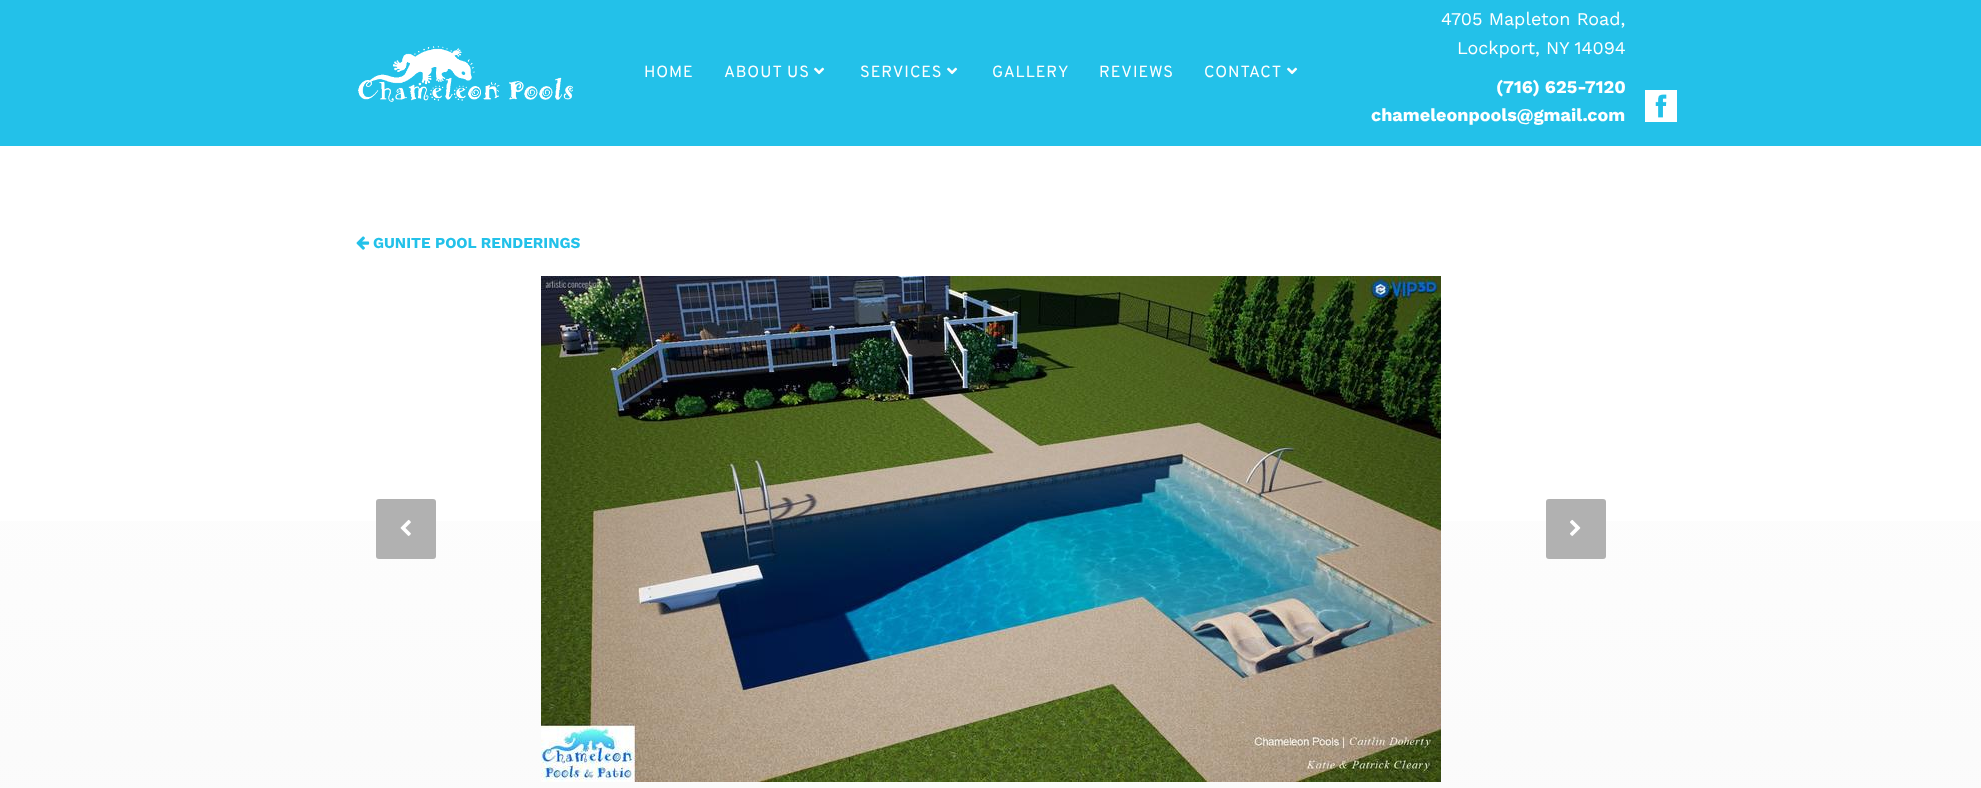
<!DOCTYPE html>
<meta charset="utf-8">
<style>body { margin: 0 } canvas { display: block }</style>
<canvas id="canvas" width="1981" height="788"></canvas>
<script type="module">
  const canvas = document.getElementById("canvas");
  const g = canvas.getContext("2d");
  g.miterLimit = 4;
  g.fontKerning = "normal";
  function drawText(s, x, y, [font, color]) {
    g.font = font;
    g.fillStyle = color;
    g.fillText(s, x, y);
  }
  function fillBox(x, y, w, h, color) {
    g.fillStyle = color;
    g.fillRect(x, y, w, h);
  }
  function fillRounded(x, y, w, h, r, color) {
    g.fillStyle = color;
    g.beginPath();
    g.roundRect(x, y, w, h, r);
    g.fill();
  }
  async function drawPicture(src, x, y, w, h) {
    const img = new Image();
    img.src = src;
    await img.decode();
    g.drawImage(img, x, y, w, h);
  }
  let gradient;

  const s1 = ["16.25px Overpass", "#FFFFFF"];
  const s2 = ["18px Work Sans", "#FFFFFF"];
  const s3 = ["bold 18px Work Sans", "#FFFFFF"];
  const s4 = ["bold 15.25px Work Sans", "#23C1E9"];

  fillBox(0, 0, 1981, 788, "#FFFFFF");
  fillBox(0, 0, 1981, 146, "#23C1E9");
  await drawPicture("pic1.png", 358, 46, 215, 56);
  g.letterSpacing = "1px";
  drawText("HOME", 644, 77, s1);
  drawText("ABOUT US", 724, 77, s1);
  await drawPicture("pic2.png", 814, 67, 11, 8);
  drawText("SERVICES", 860, 77, s1);
  await drawPicture("pic2.png", 947, 67, 11, 8);
  drawText("GALLERY", 992, 77, s1);
  drawText("REVIEWS", 1099, 77, s1);
  drawText("CONTACT", 1204, 77, s1);
  await drawPicture("pic2.png", 1287, 67, 11, 8);
  g.letterSpacing = "0px";
  drawText("4705 Mapleton Road,", 1441, 25, s2);
  drawText("Lockport, NY 14094", 1457, 54, s2);
  drawText("(716) 625-7120", 1496, 93, s3);
  drawText("chameleonpools@gmail.com", 1371, 121, s3);
  await drawPicture("pic3.png", 1645, 90, 32, 32);
  gradient = g.createLinearGradient(991, 146, 991, 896);
  gradient.addColorStop(0, "#FFFFFF");
  gradient.addColorStop(1, "#FAFAFA");
  g.fillStyle = gradient;
  g.fillRect(0, 521, 1981, 267);
  await drawPicture("pic4.png", 356, 236, 14, 14);
  drawText("GUNITE POOL RENDERINGS", 373, 248, s4);
  fillRounded(376, 499, 60, 60, 3, "#B1B1B1");
  await drawPicture("pic5.png", 400, 519, 11, 17);
  await drawPicture("pic6.png", 541, 276, 900, 506);
  fillRounded(1546, 499, 60, 60, 3, "#B1B1B1");
  await drawPicture("pic7.png", 1570, 519, 11, 17);
</script>
